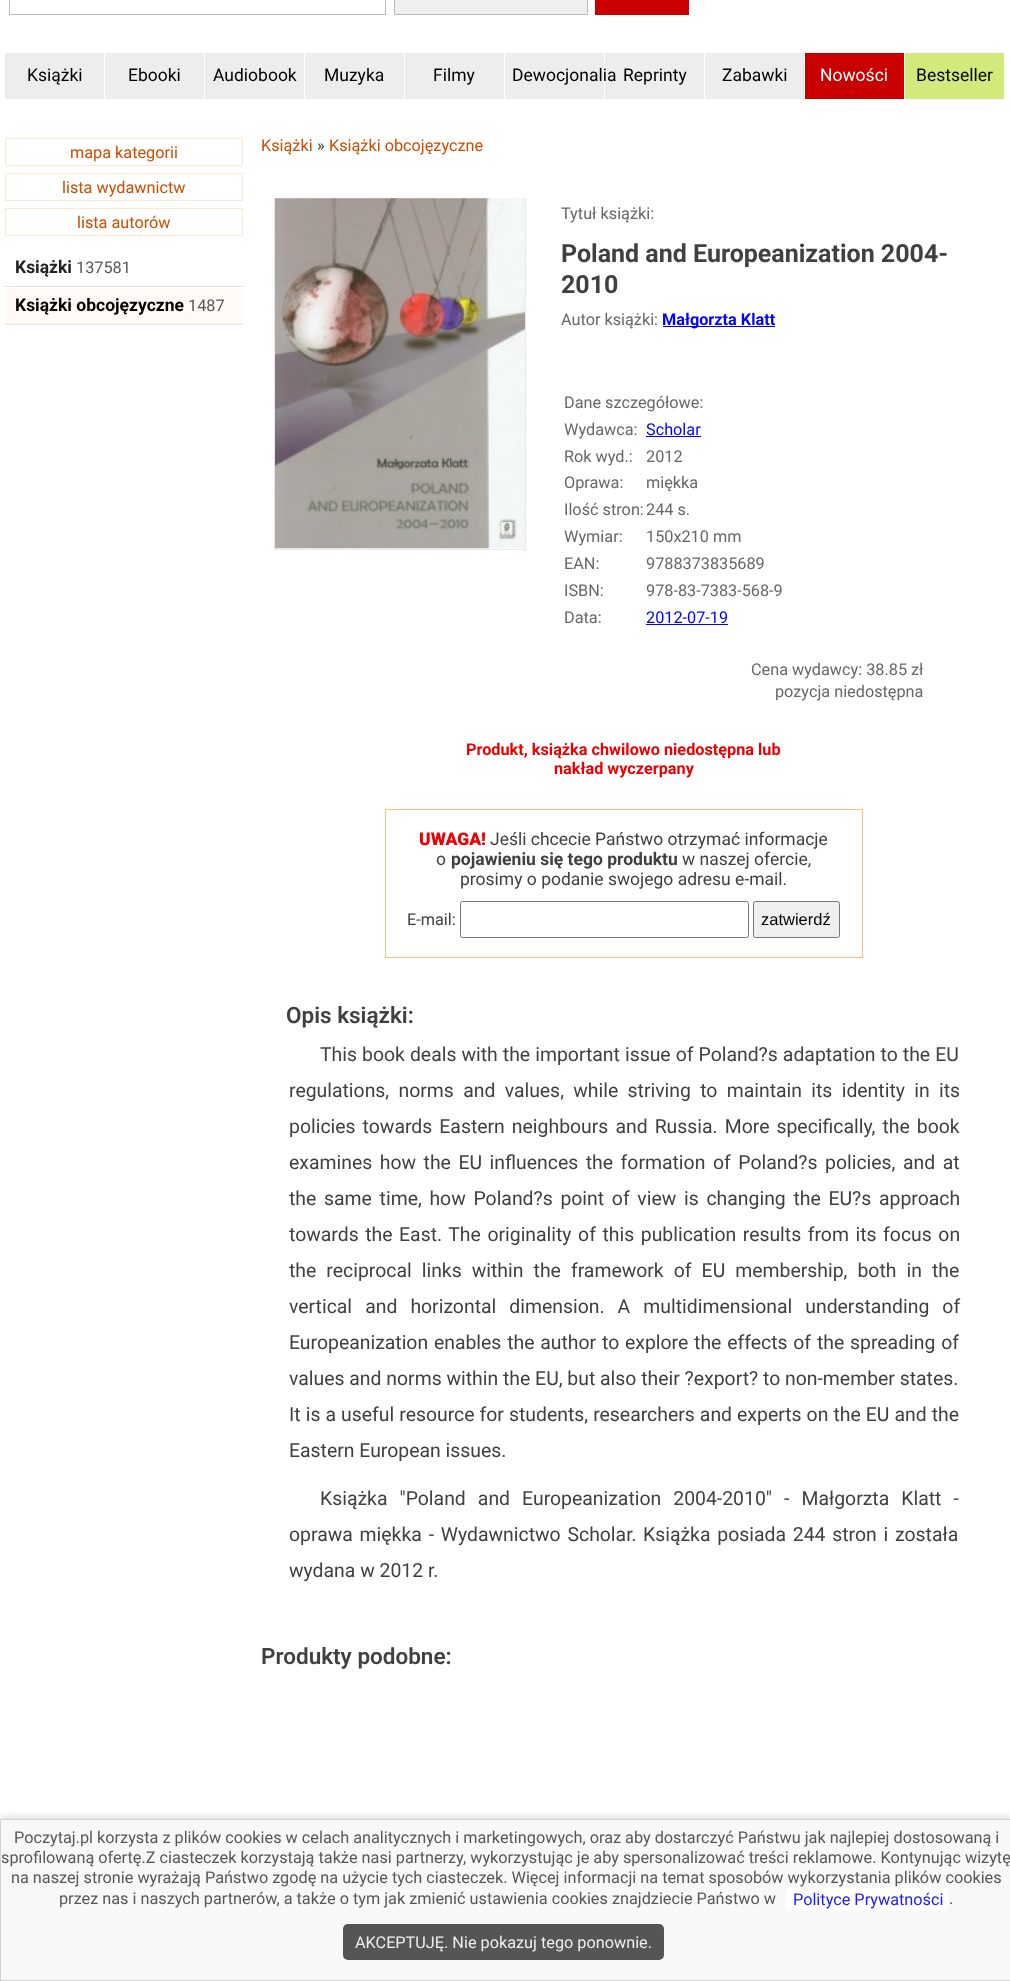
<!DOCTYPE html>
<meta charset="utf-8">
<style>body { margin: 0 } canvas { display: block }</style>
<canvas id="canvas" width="1010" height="1981"></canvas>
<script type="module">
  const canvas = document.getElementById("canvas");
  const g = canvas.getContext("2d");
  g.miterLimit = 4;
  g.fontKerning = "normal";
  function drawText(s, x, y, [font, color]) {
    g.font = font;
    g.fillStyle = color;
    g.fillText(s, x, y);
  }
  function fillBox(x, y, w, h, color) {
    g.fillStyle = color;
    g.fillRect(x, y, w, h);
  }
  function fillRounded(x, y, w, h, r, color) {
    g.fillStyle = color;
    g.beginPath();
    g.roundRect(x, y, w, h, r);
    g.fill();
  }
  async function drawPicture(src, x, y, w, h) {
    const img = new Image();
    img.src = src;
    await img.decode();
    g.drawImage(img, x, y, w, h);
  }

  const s1 = ["17.5px Roboto", "#000000"];
  const s2 = ["17.5px Roboto", "#FFFFFF"];
  const s3 = ["16.25px Roboto", "#CC4D00"];
  const s4 = ["bold 17.5px Roboto", "#222222"];
  const s5 = ["16.25px Roboto", "#575757"];
  const s6 = ["bold 17.5px Roboto", "#000000"];
  const s7 = ["16.25px Roboto", "#404040"];
  const s8 = ["16.25px Roboto", "#676767"];
  const s9 = ["bold 25px Roboto", "#404040"];
  const s10 = ["bold 16.25px Roboto", "#0000FF"];
  const s11 = ["16.25px Roboto", "#0000FF"];
  const s12 = ["bold 16.25px Roboto", "#EC0000"];
  const s13 = ["900 17.5px Roboto", "#EC0000"];
  const s14 = ["17.5px Roboto", "#404040"];
  const s15 = ["bold 17.5px Roboto", "#404040"];
  const s16 = ["16.5px Liberation Sans", "#000000"];
  const s17 = ["600 22.5px Roboto", "#404040"];
  const s18 = ["19.4px Roboto", "#404040"];
  const s19 = ["16.25px Roboto", "#1A1AFF"];
  const s20 = ["16.25px Roboto", "#EEEEEE"];

  fillBox(0, 0, 1010, 1981, "#FFFFFF");
  fillBox(0, 1819, 1010, 162, "#F8F8F8");
  g.strokeStyle = "#BABABA";
  g.strokeRect(9.5, -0.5, 376, 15);
  g.fillStyle = "#EFEFEF";
  g.beginPath();
  g.rect(394.5, -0.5, 193, 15);
  g.fill();
  g.stroke();
  fillBox(595, 0, 94, 15, "#CA0000");
  fillBox(5, 53, 99, 46, "#EDEDED");
  drawText("Książki", 27, 81, s1);
  fillBox(105, 53, 99, 46, "#EDEDED");
  drawText("Ebooki", 128, 81, s1);
  fillBox(205, 53, 99, 46, "#EDEDED");
  drawText("Audiobook", 213, 81, s1);
  fillBox(305, 53, 99, 46, "#EDEDED");
  drawText("Muzyka", 324, 81, s1);
  fillBox(405, 53, 99, 46, "#EDEDED");
  drawText("Filmy", 433, 81, s1);
  fillBox(505, 53, 99, 46, "#EDEDED");
  fillBox(605, 53, 99, 46, "#EDEDED");
  drawText("Dewocjonalia", 512, 81, s1);
  drawText("Reprinty", 623, 81, s1);
  fillBox(705, 53, 99, 46, "#EDEDED");
  drawText("Zabawki", 722, 81, s1);
  fillBox(805, 53, 99, 46, "#CA0000");
  drawText("Nowości", 820, 81, s2);
  fillBox(905, 53, 99, 46, "#D1EA7B");
  drawText("Bestseller", 916, 81, s1);
  g.strokeStyle = "#FFE6CC";
  g.strokeRect(5.5, 138.5, 237, 27);
  drawText("mapa kategorii", 70, 158, s3);
  g.strokeRect(5.5, 173.5, 237, 27);
  drawText("lista wydawnictw", 62, 193, s3);
  g.strokeRect(5.5, 208.5, 237, 27);
  drawText("lista autorów", 77, 228, s3);
  fillBox(5, 286, 238, 1, "#E2E2E2");
  drawText("Książki", 15, 273, s4);
  drawText("137581", 76, 273, s5);
  fillBox(5, 288, 238, 36, "#FFFAF6");
  fillBox(5, 324, 238, 1, "#E2E2E2");
  drawText("Książki obcojęzyczne", 15, 311, s6);
  drawText("1487", 188, 311, s5);
  drawText("Książki", 261, 151, s3);
  drawText("»", 317, 151, s7);
  drawText("Książki obcojęzyczne", 329, 151, s3);
  g.strokeStyle = "#E8E8E8";
  g.strokeRect(274.5, 198.5, 251, 351);
  await drawPicture("pic1.png", 275, 198, 250, 351);
  drawText("Tytuł książki:", 561, 219, s8);
  drawText("Poland and Europeanization 2004-", 561, 262, s9);
  drawText("2010", 561, 293, s9);
  drawText("Autor książki:", 561, 325, s8);
  fillBox(663, 326, 112, 1, "#0000FF");
  drawText("Małgorzta Klatt", 662, 325, s10);
  drawText("Dane szczegółowe:", 564, 408, s8);
  drawText("Wydawca:", 564, 435, s8);
  drawText("Scholar", 646, 435, s11);
  fillBox(646, 436, 55, 1, "#0000FF");
  drawText("Rok wyd.:", 564, 462, s8);
  drawText("2012", 646, 462, s8);
  drawText("Oprawa:", 564, 488, s8);
  drawText("miękka", 646, 488, s8);
  drawText("Ilość stron:", 564, 515, s8);
  drawText("244 s.", 646, 515, s8);
  drawText("Wymiar:", 564, 542, s8);
  drawText("150x210 mm", 646, 542, s8);
  drawText("EAN:", 564, 569, s8);
  drawText("9788373835689", 646, 569, s8);
  drawText("ISBN:", 564, 596, s8);
  drawText("978-83-7383-568-9", 646, 596, s8);
  drawText("Data:", 564, 623, s8);
  drawText("2012-07-19", 646, 623, s11);
  fillBox(646, 624, 82, 1, "#0000FF");
  drawText("Cena wydawcy: 38.85 zł", 751, 675, s8);
  drawText("pozycja niedostępna", 775, 697, s8);
  drawText("Produkt, książka chwilowo niedostępna lub", 466, 755, s12);
  drawText("nakład wyczerpany", 554, 774, s12);
  g.strokeStyle = "#FFBF80";
  g.strokeRect(385.5, 809.5, 477, 148);
  drawText("UWAGA!", 419, 845, s13);
  drawText("Jeśli chcecie Państwo otrzymać informacje", 490, 845, s14);
  drawText("o", 436, 865, s14);
  drawText("pojawieniu się tego produktu", 451, 865, s15);
  drawText("w naszej ofercie,", 682, 865, s14);
  drawText("prosimy o podanie swojego adresu e-mail.", 460, 885, s14);
  drawText("E-mail:", 407, 925, s7);
  g.beginPath();
  g.roundRect(460.5, 901.5, 288, 36, 2);
  g.strokeStyle = "#767676";
  g.stroke();
  g.fillStyle = "#EFEFEF";
  g.beginPath();
  g.roundRect(753.5, 901.5, 86, 36, 2);
  g.fill();
  g.stroke();
  drawText("zatwierdź", 761, 925, s16);
  drawText("Opis książki:", 286, 1023, s17);
  g.wordSpacing = "0.25px";
  drawText("This book deals with the important issue of Poland?s adaptation to the EU", 320, 1061, s18);
  g.wordSpacing = "4.5px";
  drawText("regulations, norms and values, while striving to maintain its identity in its", 289, 1097, s18);
  g.wordSpacing = "2.25px";
  drawText("policies towards Eastern neighbours and Russia. More specifically, the book", 289, 1133, s18);
  g.wordSpacing = "2.75px";
  drawText("examines how the EU influences the formation of Poland?s policies, and at", 289, 1169, s18);
  g.wordSpacing = "2.9px";
  drawText("the same time, how Poland?s point of view is changing the EU?s approach", 289, 1205, s18);
  g.wordSpacing = "1.75px";
  drawText("towards the East. The originality of this publication results from its focus on", 289, 1241, s18);
  g.wordSpacing = "5.25px";
  drawText("the reciprocal links within the framework of EU membership, both in the", 289, 1277, s18);
  g.wordSpacing = "8.25px";
  drawText("vertical and horizontal dimension. A multidimensional understanding of", 289, 1313, s18);
  g.wordSpacing = "1px";
  drawText("Europeanization enables the author to explore the effects of the spreading of", 289, 1349, s18);
  g.wordSpacing = "0px";
  drawText("values and norms within the EU, but also their ?export? to non-member states.", 289, 1385, s18);
  g.wordSpacing = "0.25px";
  drawText("It is a useful resource for students, researchers and experts on the EU and the", 289, 1421, s18);
  g.wordSpacing = "0px";
  drawText("Eastern European issues.", 289, 1457, s18);
  g.wordSpacing = "7.25px";
  drawText("Książka \"Poland and Europeanization 2004-2010\" - Małgorzta Klatt -", 320, 1505, s18);
  g.wordSpacing = "2px";
  drawText("oprawa miękka - Wydawnictwo Scholar.", 289, 1541, s18);
  drawText("Książka posiada 244 stron i została", 643, 1541, s18);
  g.wordSpacing = "0px";
  drawText("wydana w 2012 r.", 289, 1577, s18);
  drawText("Produkty podobne:", 261, 1664, s17);
  g.save();
  g.beginPath();
  g.rect(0, 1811, 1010, 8);
  g.clip();
  g.fillStyle = "#C6C6C6";
  g.filter = "blur(4px)";
  g.beginPath();
  g.rect(0, 1819, 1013, 162);
  g.fill();
  g.filter = "none";
  g.restore();
  g.strokeStyle = "rgba(206, 206, 206, 0.9)";
  g.strokeRect(0.5, 1819.5, 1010, 161);
  drawText("Poczytaj.pl korzysta z plików cookies w celach analitycznych i marketingowych, oraz aby dostarczyć Państwu jak najlepiej dostosowaną i", 14, 1843, s5);
  drawText("sprofilowaną ofertę.Z ciasteczek korzystają także nasi partnerzy, wykorzystując je aby spersonalizować treści reklamowe. Kontynując wizytę", 1, 1863, s5);
  drawText("na naszej stronie wyrażają Państwo zgodę na użycie tych ciasteczek. Więcej informacji na temat sposobów wykorzystania plików cookies", 11, 1883, s5);
  drawText("przez nas i naszych partnerów, a także o tym jak zmienić ustawienia cookies znajdziecie Państwo w", 59, 1904, s5);
  fillRounded(786, 1888, 163, 23, 5, "#FFFFFF");
  drawText("Polityce Prywatności", 793, 1905, s19);
  drawText(".", 949, 1904, s5);
  fillRounded(343, 1924, 321, 36, 5, "rgba(66, 66, 66, 0.9)");
  drawText("AKCEPTUJĘ. Nie pokazuj tego ponownie.", 355, 1948, s20);
</script>
